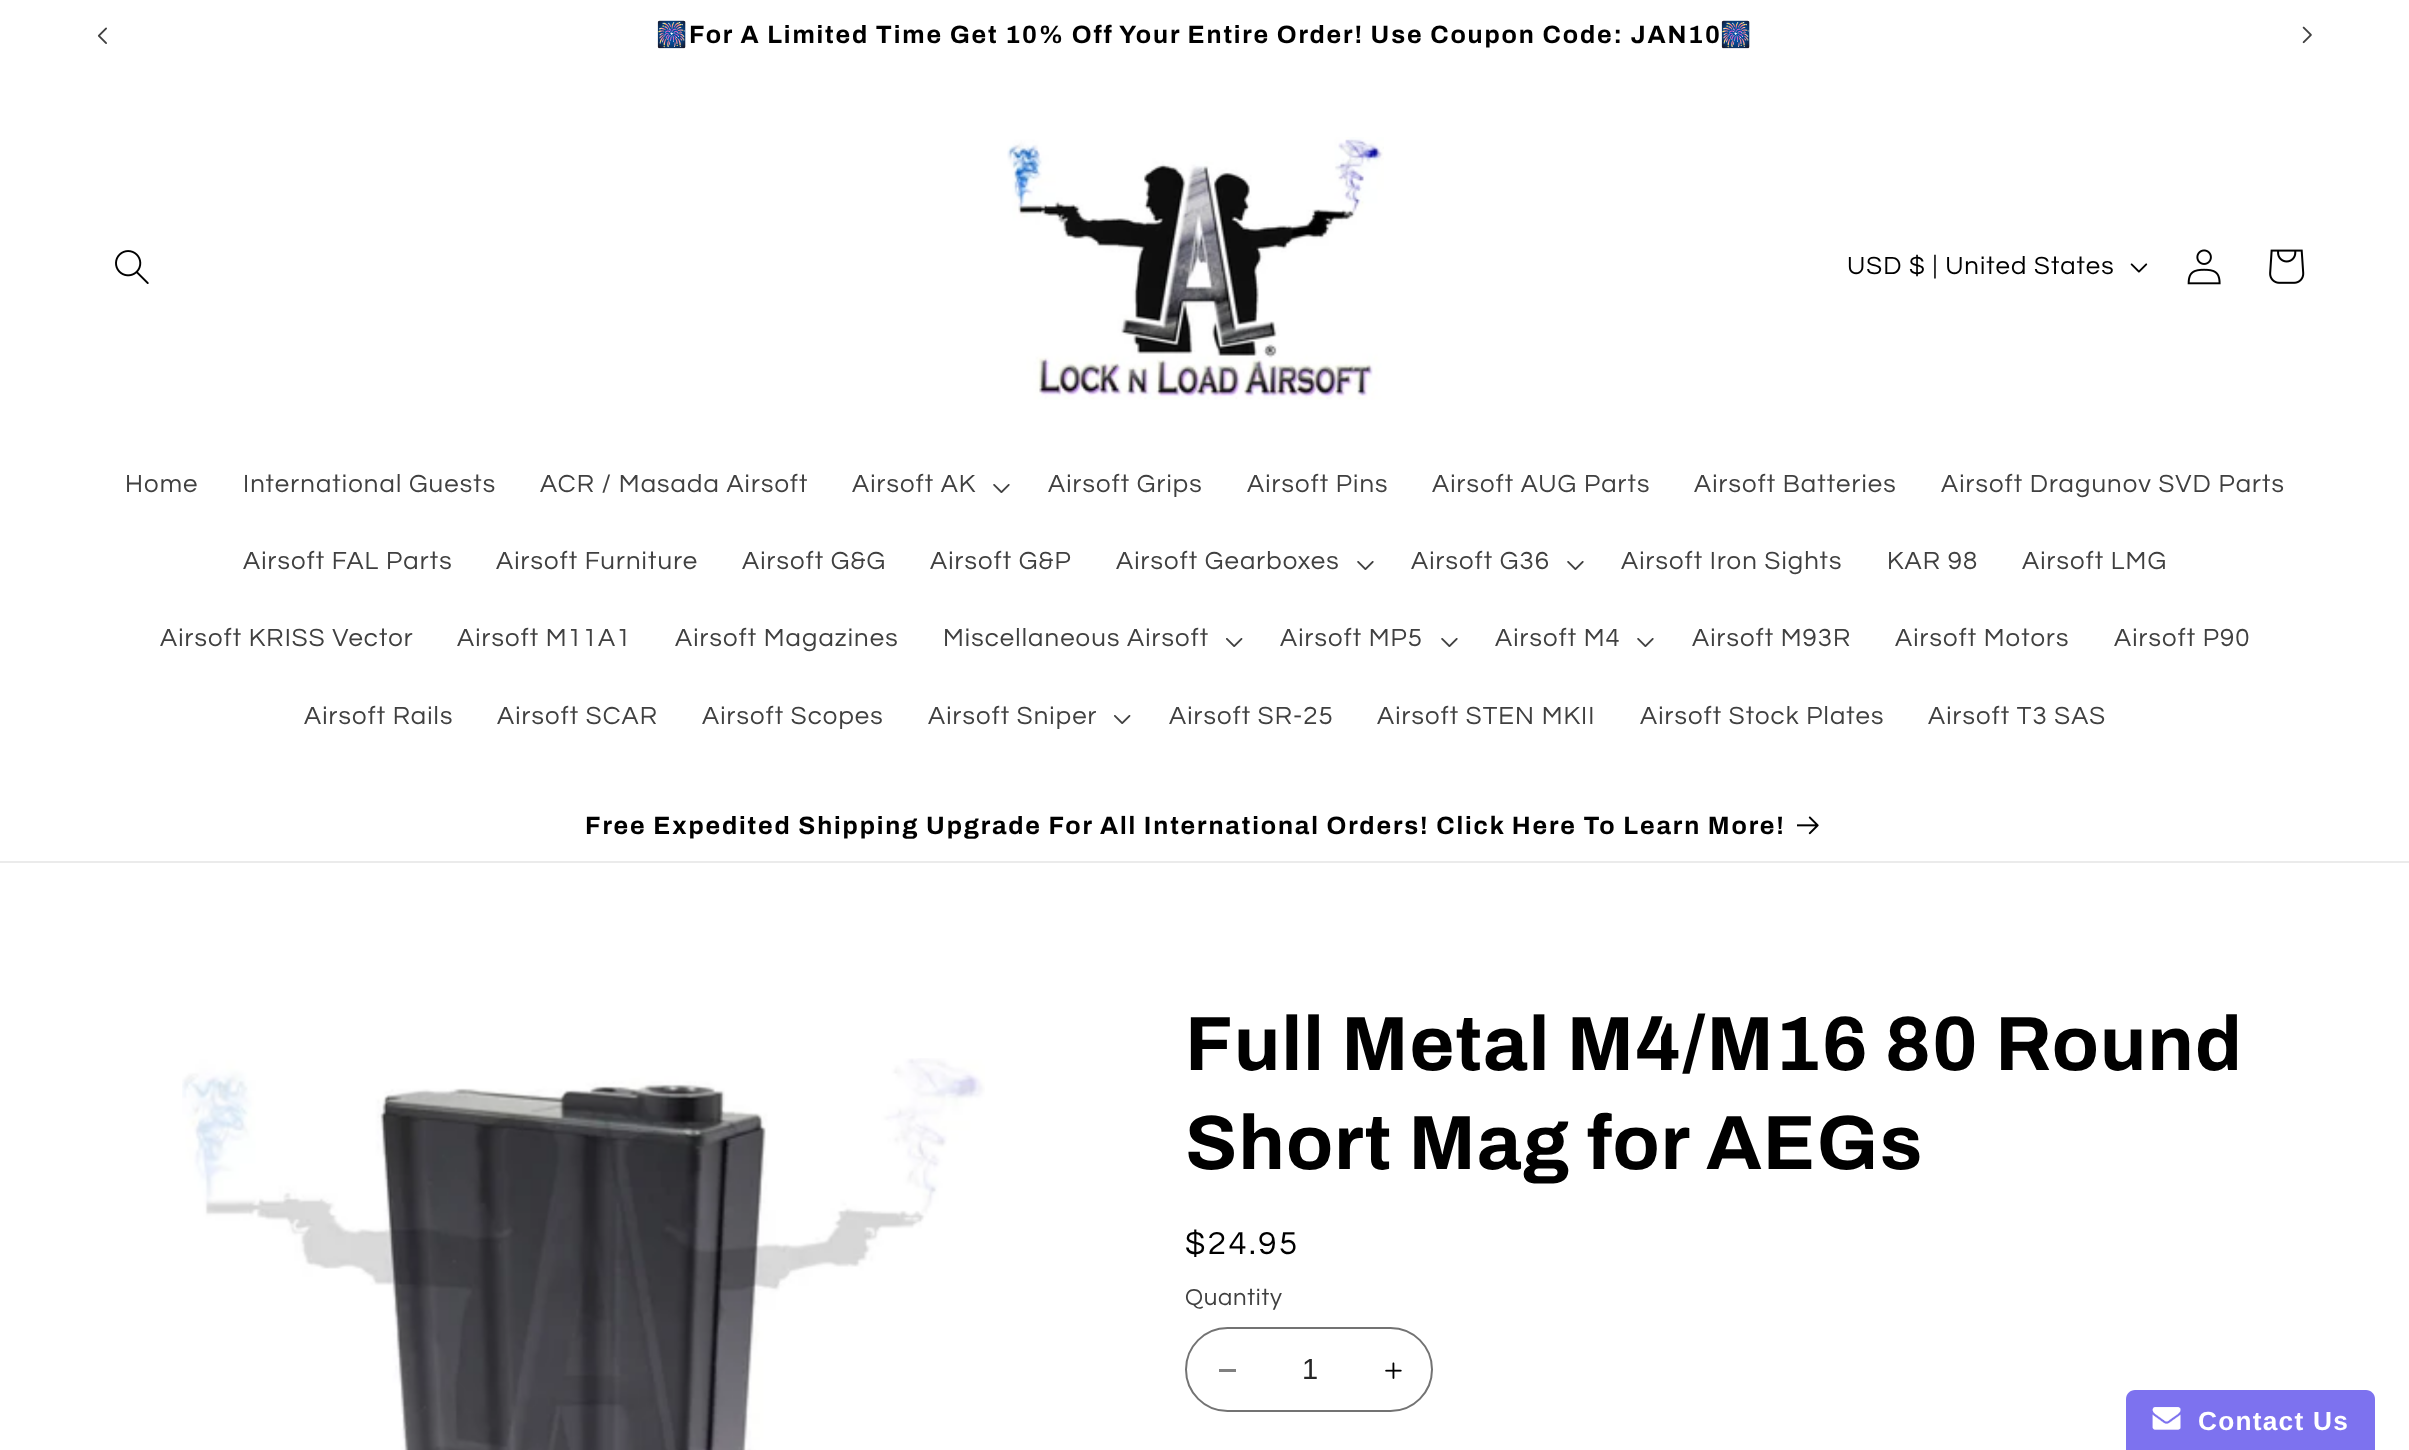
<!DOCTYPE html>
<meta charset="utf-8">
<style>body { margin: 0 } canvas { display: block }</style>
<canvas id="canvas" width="2409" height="1450"></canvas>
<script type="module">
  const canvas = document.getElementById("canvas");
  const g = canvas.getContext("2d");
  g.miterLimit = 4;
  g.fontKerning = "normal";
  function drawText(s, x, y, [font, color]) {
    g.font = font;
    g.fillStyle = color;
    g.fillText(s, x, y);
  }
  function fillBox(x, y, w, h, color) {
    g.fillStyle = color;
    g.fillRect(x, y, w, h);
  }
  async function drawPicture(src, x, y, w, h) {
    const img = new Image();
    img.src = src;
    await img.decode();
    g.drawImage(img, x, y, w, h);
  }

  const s1 = ["bold 25.05px Noto Color Emoji", "#000000"];
  const s2 = ["bold 25.05px Archivo", "#000000"];
  const s3 = ["25.75px Questrial", "#000000"];
  const s4 = ["25.75px Questrial", "#404040"];
  const s5 = ["bold 77px Archivo", "#000000"];
  const s6 = ["33px Questrial", "#000000"];
  const s7 = ["24px Questrial", "#404040"];
  const s8 = ["29px Liberation Sans", "#262626"];
  const s9 = ["bold 26.25px Liberation Sans", "#FFFFFF"];

  fillBox(0, 0, 2409, 1450, "#FFFFFF");
  await drawPicture("pic1.png", 97, 27, 10, 17);
  g.letterSpacing = "1.85px";
  drawText("🎆", 656, 43, s1);
  drawText("For A Limited Time Get 10% Off Your Entire Order! Use Coupon Code: JAN10", 689, 43, s2);
  drawText("🎆", 1720, 43, s1);
  await drawPicture("pic2.png", 2302, 26, 10, 18);
  await drawPicture("pic3.png", 115, 250, 34, 34);
  await drawPicture("pic4.png", 1007, 137, 377, 263);
  g.letterSpacing = "1.1px";
  drawText("USD $ | United States", 1847, 274, s3);
  await drawPicture("pic5.png", 2130, 263, 18, 10);
  await drawPicture("pic6.png", 2187, 249, 34, 36);
  await drawPicture("pic7.png", 2269, 249, 36, 35);
  drawText("Home", 125, 492, s4);
  drawText("International Guests", 243, 492, s4);
  drawText("ACR / Masada Airsoft", 540, 492, s4);
  drawText("Airsoft AK", 852, 492, s4);
  await drawPicture("pic8.png", 993, 484, 17, 9);
  drawText("Airsoft Grips", 1048, 492, s4);
  drawText("Airsoft Pins", 1247, 492, s4);
  drawText("Airsoft AUG Parts", 1432, 492, s4);
  drawText("Airsoft Batteries", 1694, 492, s4);
  drawText("Airsoft Dragunov SVD Parts", 1941, 492, s4);
  drawText("Airsoft FAL Parts", 243, 569, s4);
  drawText("Airsoft Furniture", 496, 569, s4);
  drawText("Airsoft G&G", 742, 569, s4);
  drawText("Airsoft G&P", 930, 569, s4);
  drawText("Airsoft Gearboxes", 1116, 569, s4);
  await drawPicture("pic8.png", 1357, 561, 17, 9);
  drawText("Airsoft G36", 1411, 569, s4);
  await drawPicture("pic8.png", 1567, 561, 17, 9);
  drawText("Airsoft Iron Sights", 1621, 569, s4);
  drawText("KAR 98", 1887, 569, s4);
  drawText("Airsoft LMG", 2022, 569, s4);
  drawText("Airsoft KRISS Vector", 160, 646, s4);
  drawText("Airsoft M11A1", 457, 646, s4);
  drawText("Airsoft Magazines", 675, 646, s4);
  drawText("Miscellaneous Airsoft", 943, 646, s4);
  await drawPicture("pic9.png", 1226, 638, 17, 9);
  drawText("Airsoft MP5", 1280, 646, s4);
  await drawPicture("pic8.png", 1441, 638, 17, 9);
  drawText("Airsoft M4", 1495, 646, s4);
  await drawPicture("pic8.png", 1637, 638, 17, 9);
  drawText("Airsoft M93R", 1692, 646, s4);
  drawText("Airsoft Motors", 1895, 646, s4);
  drawText("Airsoft P90", 2114, 646, s4);
  drawText("Airsoft Rails", 304, 724, s4);
  drawText("Airsoft SCAR", 497, 724, s4);
  drawText("Airsoft Scopes", 702, 724, s4);
  drawText("Airsoft Sniper", 928, 724, s4);
  await drawPicture("pic9.png", 1114, 715, 17, 9);
  drawText("Airsoft SR-25", 1169, 724, s4);
  drawText("Airsoft STEN MKII", 1377, 724, s4);
  drawText("Airsoft Stock Plates", 1640, 724, s4);
  drawText("Airsoft T3 SAS", 1928, 724, s4);
  fillBox(0, 861, 2409, 2, "#EBEBEB");
  g.letterSpacing = "1.85px";
  drawText("Free Expedited Shipping Upgrade For All International Orders! Click Here To Learn More!", 585, 834, s2);
  await drawPicture("pic10.png", 1797, 816, 22, 19);
  await drawPicture("pic11.png", 182, 1058, 803, 392);
  g.letterSpacing = "1.15px";
  drawText("Full Metal M4/M16 80 Round", 1185, 1070, s5);
  drawText("Short Mag for AEGs", 1185, 1169, s5);
  g.letterSpacing = "2.5px";
  drawText("$24.95", 1185, 1254, s6);
  g.letterSpacing = "0.75px";
  drawText("Quantity", 1185, 1305, s7);
  fillBox(1219, 1369, 17, 3, "#808080");
  await drawPicture("pic12.png", 1385, 1362, 17, 17);
  g.beginPath();
  g.roundRect(1186, 1328, 246, 83, 41.5);
  g.strokeStyle = "#737373";
  g.lineWidth = 2;
  g.stroke();
  g.letterSpacing = "0px";
  drawText("1", 1302, 1379, s8);
  g.fillStyle = "#7D72EF";
  g.beginPath();
  g.moveTo(2135, 1390);
  g.lineTo(2366, 1390);
  g.bezierCurveTo(2371, 1390, 2375, 1394, 2375, 1399);
  g.lineTo(2375, 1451);
  g.lineTo(2126, 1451);
  g.lineTo(2126, 1399);
  g.bezierCurveTo(2126, 1394, 2130, 1390, 2135, 1390);
  g.closePath();
  g.fill();
  await drawPicture("pic13.png", 2152, 1407, 29, 23);
  g.letterSpacing = "1.25px";
  drawText("Contact Us", 2198, 1430, s9);
</script>
